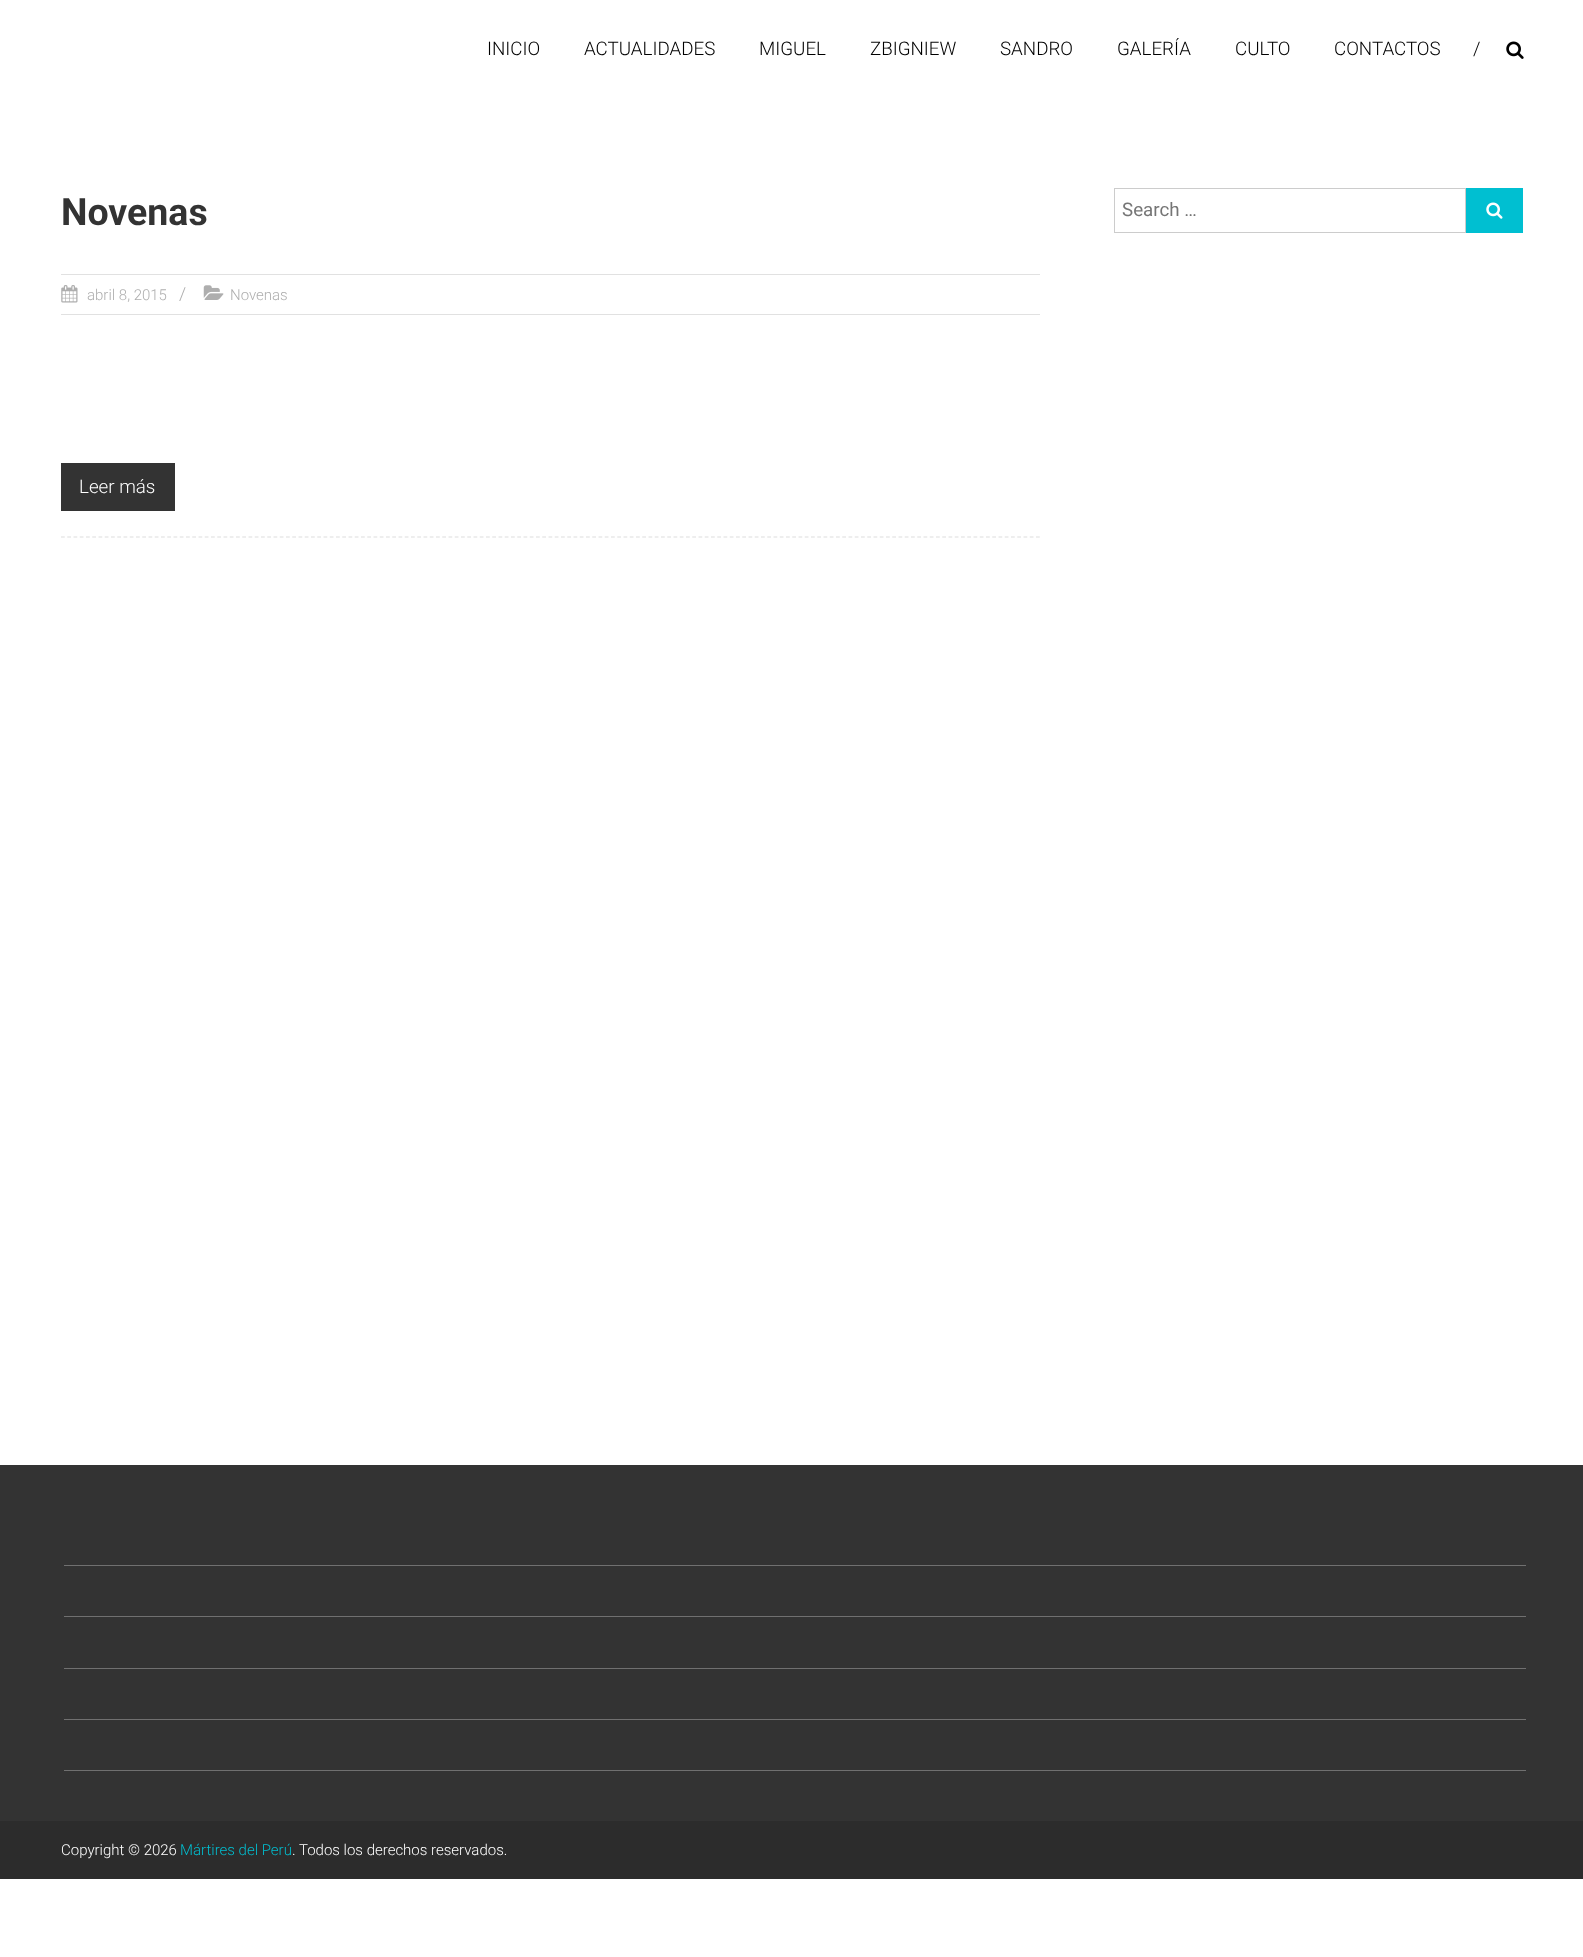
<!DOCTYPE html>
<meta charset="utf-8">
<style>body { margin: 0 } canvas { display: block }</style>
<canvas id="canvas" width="1583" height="1957"></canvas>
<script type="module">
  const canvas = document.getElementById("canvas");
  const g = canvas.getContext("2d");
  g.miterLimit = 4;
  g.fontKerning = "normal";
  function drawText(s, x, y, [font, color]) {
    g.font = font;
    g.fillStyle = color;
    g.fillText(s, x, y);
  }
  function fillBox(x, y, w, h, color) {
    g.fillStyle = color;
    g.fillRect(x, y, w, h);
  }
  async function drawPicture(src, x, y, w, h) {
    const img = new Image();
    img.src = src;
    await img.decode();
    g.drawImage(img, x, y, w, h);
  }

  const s1 = ["300 18.75px Roboto", "#000000"];
  const s2 = ["bold 37.5px Roboto", "#333333"];
  const s3 = ["300 15px Roboto", "#AEAEAE"];
  const s4 = ["300 18px Roboto", "#AEAEAE"];
  const s5 = ["300 18.75px Roboto", "#FFFFFF"];
  const s6 = ["18.75px Roboto", "#757575"];
  const s7 = ["300 15px Roboto", "#FFFFFF"];
  const s8 = ["300 15px Roboto", "#00BFD1"];

  fillBox(0, 0, 1583, 1957, "#FFFFFF");
  drawText("INICIO", 487, 55, s1);
  drawText("ACTUALIDADES", 584, 55, s1);
  drawText("MIGUEL", 759, 55, s1);
  drawText("ZBIGNIEW", 870, 55, s1);
  drawText("SANDRO", 1000, 55, s1);
  drawText("GALERÍA", 1117, 55, s1);
  drawText("CULTO", 1235, 55, s1);
  drawText("CONTACTOS", 1334, 55, s1);
  drawText("/", 1473, 55, s1);
  await drawPicture("pic1.png", 1506, 41, 18, 18);
  g.beginPath();
  g.moveTo(61, 537);
  g.lineTo(1040, 537);
  g.strokeStyle = "#DDDDDD";
  g.lineWidth = 1.2;
  g.setLineDash([3.75, 2.5]);
  g.stroke();
  drawText("Novenas", 61, 225, s2);
  fillBox(61, 274, 979, 1, "#E1E1E1");
  fillBox(61, 314, 979, 1, "#E1E1E1");
  await drawPicture("pic2.png", 61, 285, 17, 18);
  drawText("abril 8, 2015", 87, 300, s3);
  drawText("/", 179, 300, s4);
  await drawPicture("pic3.png", 203, 285, 21, 15);
  drawText("Novenas", 230, 300, s3);
  fillBox(61, 463, 114, 48, "#333333");
  drawText("Leer más", 79, 493, s5);
  g.strokeStyle = "#CCCCCC";
  g.lineWidth = 1;
  g.setLineDash([]);
  g.strokeRect(1114.5, 188.5, 351, 44);
  drawText("Search …", 1122, 216, s6);
  fillBox(1466, 188, 57, 45, "#00BFD1");
  await drawPicture("pic4.png", 1486, 202, 17, 17);
  fillBox(0, 1465, 1583, 356, "#333333");
  fillBox(64, 1565, 1462, 1, "#707070");
  fillBox(64, 1616, 1462, 1, "#707070");
  fillBox(64, 1668, 1462, 1, "#707070");
  fillBox(64, 1719, 1462, 1, "#707070");
  fillBox(64, 1770, 1462, 1, "#707070");
  fillBox(0, 1821, 1583, 58, "#2C2C2C");
  drawText("Copyright © 2026", 61, 1855, s7);
  drawText("Mártires del Perú", 180, 1855, s8);
  drawText(". Todos los derechos reservados.", 292, 1855, s7);
</script>
